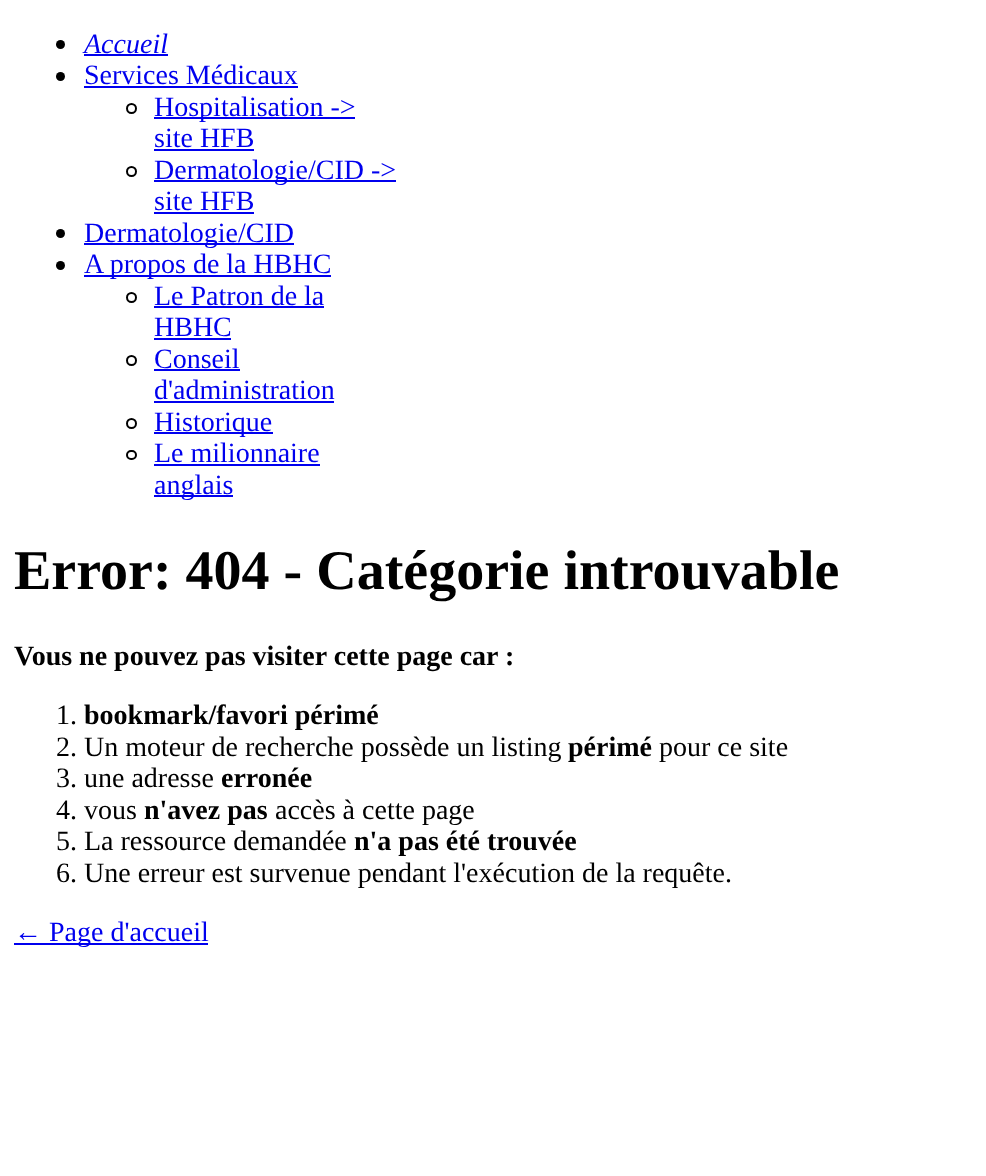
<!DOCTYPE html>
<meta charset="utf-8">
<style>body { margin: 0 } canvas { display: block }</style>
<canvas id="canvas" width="986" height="1176"></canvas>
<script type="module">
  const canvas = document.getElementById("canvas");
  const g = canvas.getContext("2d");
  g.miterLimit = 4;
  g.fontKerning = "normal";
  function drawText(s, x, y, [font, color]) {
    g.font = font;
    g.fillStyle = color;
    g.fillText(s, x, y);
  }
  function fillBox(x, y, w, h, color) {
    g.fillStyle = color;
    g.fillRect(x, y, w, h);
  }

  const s1 = ["italic 28px Liberation Serif", "#0000EE"];
  const s2 = ["28px Liberation Serif", "#0000EE"];
  const s3 = ["bold 56px Liberation Serif", "#000000"];
  const s4 = ["bold 28px Liberation Serif", "#000000"];
  const s5 = ["28px Liberation Serif", "#000000"];

  fillBox(0, 0, 986, 1176, "#FFFFFF");
  g.fillStyle = "#000000";
  g.beginPath();
  g.arc(60.5, 44.5, 4.5, 0, Math.PI * 2);
  g.fill();
  drawText("Accueil", 84, 53, s1);
  fillBox(84, 54, 84, 2, "#0000EE");
  g.fillStyle = "#000000";
  g.beginPath();
  g.arc(60.5, 76.5, 4.5, 0, Math.PI * 2);
  g.fill();
  drawText("Services Médicaux", 84, 84, s2);
  fillBox(84, 86, 214, 2, "#0000EE");
  g.beginPath();
  g.arc(131.5, 108.5, 4.5, 0, Math.PI * 2);
  g.strokeStyle = "#000000";
  g.lineWidth = 2;
  g.stroke();
  fillBox(154, 117, 201, 2, "#0000EE");
  drawText("Hospitalisation ->", 154, 116, s2);
  drawText("site HFB", 154, 147, s2);
  fillBox(154, 149, 100, 2, "#0000EE");
  g.beginPath();
  g.arc(131.5, 171.5, 4.5, 0, Math.PI * 2);
  g.stroke();
  fillBox(154, 180, 242, 2, "#0000EE");
  drawText("Dermatologie/CID ->", 154, 179, s2);
  drawText("site HFB", 154, 210, s2);
  fillBox(154, 212, 100, 2, "#0000EE");
  g.fillStyle = "#000000";
  g.beginPath();
  g.arc(60.5, 233.5, 4.5, 0, Math.PI * 2);
  g.fill();
  fillBox(84, 243, 210, 2, "#0000EE");
  drawText("Dermatologie/CID", 84, 242, s2);
  g.fillStyle = "#000000";
  g.beginPath();
  g.arc(60.5, 265.5, 4.5, 0, Math.PI * 2);
  g.fill();
  fillBox(84, 275, 247, 2, "#0000EE");
  drawText("A propos de la HBHC", 84, 273, s2);
  g.beginPath();
  g.arc(131.5, 297.5, 4.5, 0, Math.PI * 2);
  g.stroke();
  drawText("Le Patron de la", 154, 305, s2);
  fillBox(154, 306, 170, 2, "#0000EE");
  drawText("HBHC", 154, 336, s2);
  fillBox(154, 338, 77, 2, "#0000EE");
  g.beginPath();
  g.arc(131.5, 360.5, 4.5, 0, Math.PI * 2);
  g.stroke();
  drawText("Conseil", 154, 368, s2);
  fillBox(154, 369, 86, 2, "#0000EE");
  drawText("d'administration", 154, 399, s2);
  fillBox(154, 401, 180, 2, "#0000EE");
  g.beginPath();
  g.arc(131.5, 423.5, 4.5, 0, Math.PI * 2);
  g.stroke();
  fillBox(154, 432, 119, 2, "#0000EE");
  drawText("Historique", 154, 431, s2);
  g.beginPath();
  g.roundRect(127, 451, 9, 8, 4);
  g.stroke();
  drawText("Le milionnaire", 154, 462, s2);
  fillBox(154, 464, 166, 2, "#0000EE");
  fillBox(154, 495, 79, 2, "#0000EE");
  drawText("anglais", 154, 494, s2);
  drawText("Error: 404 - Catégorie introuvable", 14, 589, s3);
  drawText("Vous ne pouvez pas visiter cette page car :", 14, 665, s4);
  drawText("1.", 56, 724, s5);
  drawText("bookmark/favori périmé", 84, 724, s4);
  drawText("2. Un moteur de recherche possède un listing", 56, 756, s5);
  drawText("périmé", 568, 756, s4);
  drawText("pour ce site", 659, 756, s5);
  drawText("3. une adresse", 56, 787, s5);
  drawText("erronée", 221, 787, s4);
  drawText("4. vous", 56, 819, s5);
  drawText("n'avez pas", 144, 819, s4);
  drawText("accès à cette page", 275, 819, s5);
  drawText("5. La ressource demandée", 56, 850, s5);
  drawText("n'a pas été trouvée", 354, 850, s4);
  drawText("6. Une erreur est survenue pendant l'exécution de la requête.", 56, 882, s5);
  fillBox(14, 943, 194, 2, "#0000EE");
  drawText("← Page d'accueil", 14, 941, s2);
</script>
